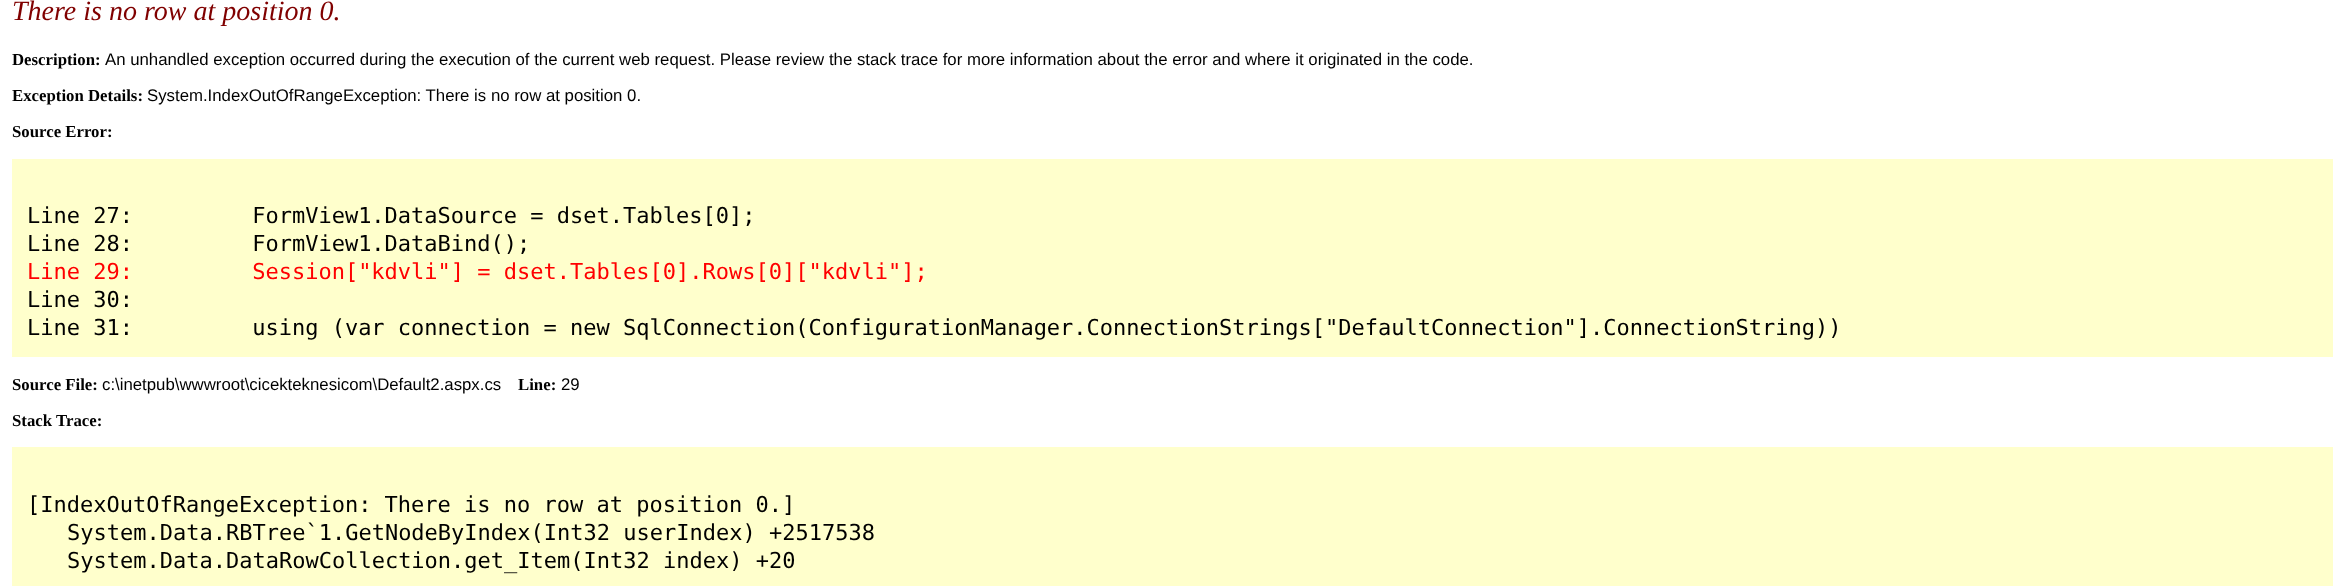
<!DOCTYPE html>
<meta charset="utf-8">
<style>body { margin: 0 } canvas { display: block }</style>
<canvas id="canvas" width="2344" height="586"></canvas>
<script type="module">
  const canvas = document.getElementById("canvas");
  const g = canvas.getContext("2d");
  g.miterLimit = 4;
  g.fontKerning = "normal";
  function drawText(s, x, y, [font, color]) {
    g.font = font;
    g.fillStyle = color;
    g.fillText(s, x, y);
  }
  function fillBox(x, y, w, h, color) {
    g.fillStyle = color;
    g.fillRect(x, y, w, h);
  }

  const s1 = ["italic 28px Liberation Serif", "#800000"];
  const s2 = ["bold 16.8px Liberation Serif", "#000000"];
  const s3 = ["16.8px Liberation Sans", "#000000"];
  const s4 = ["22px DejaVu Sans Mono", "#000000"];
  const s5 = ["22px DejaVu Sans Mono", "#FF0000"];

  fillBox(0, 0, 2344, 586, "#FFFFFF");
  drawText("There is no row at position 0.", 12, 20, s1);
  drawText("Description:", 12, 65, s2);
  drawText("An unhandled exception occurred during the execution of the current web request. Please review the stack trace for more information about the error and where it originated in the code.", 105, 65, s3);
  drawText("Exception Details:", 12, 101, s2);
  drawText("System.IndexOutOfRangeException: There is no row at position 0.", 147, 101, s3);
  drawText("Source Error:", 12, 137, s2);
  fillBox(12, 159, 2321, 198, "#FFFFCC");
  drawText("Line 27:         FormView1.DataSource = dset.Tables[0];", 27, 223, s4);
  drawText("Line 28:         FormView1.DataBind();", 27, 251, s4);
  drawText("Line 29:         Session[\"kdvli\"] = dset.Tables[0].Rows[0][\"kdvli\"];", 27, 279, s5);
  drawText("Line 30:", 27, 307, s4);
  drawText("Line 31:         using (var connection = new SqlConnection(ConfigurationManager.ConnectionStrings[\"DefaultConnection\"].ConnectionString))", 27, 335, s4);
  drawText("Source File:", 12, 390, s2);
  drawText("c:\\inetpub\\wwwroot\\cicekteknesicom\\Default2.aspx.cs", 102, 390, s3);
  drawText("Line:", 518, 390, s2);
  drawText("29", 561, 390, s3);
  drawText("Stack Trace:", 12, 426, s2);
  fillBox(12, 447, 2321, 139, "#FFFFCC");
  drawText("[IndexOutOfRangeException: There is no row at position 0.]", 27, 512, s4);
  drawText("System.Data.RBTree`1.GetNodeByIndex(Int32 userIndex) +2517538", 67, 540, s4);
  drawText("System.Data.DataRowCollection.get_Item(Int32 index) +20", 67, 568, s4);
</script>
